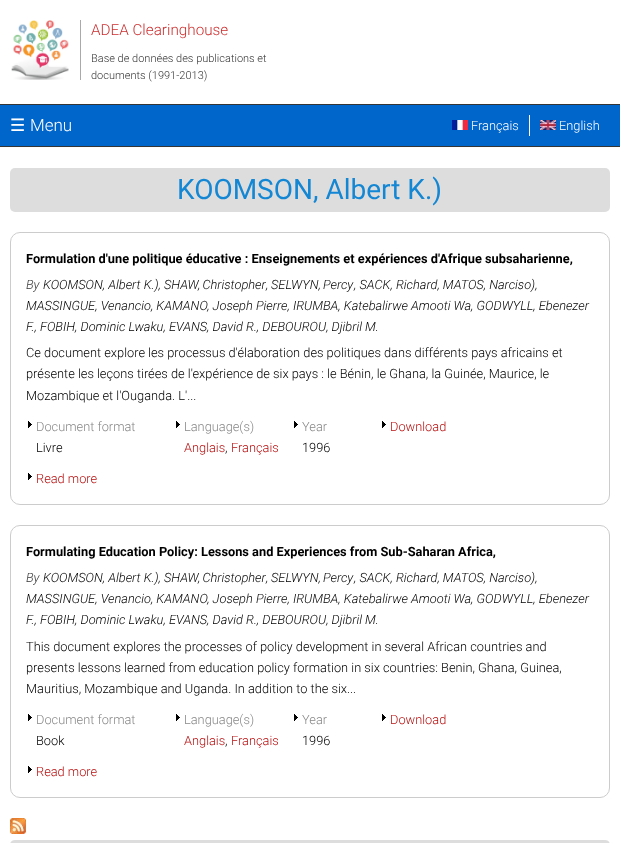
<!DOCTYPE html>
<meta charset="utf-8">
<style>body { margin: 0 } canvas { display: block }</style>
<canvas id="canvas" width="620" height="843"></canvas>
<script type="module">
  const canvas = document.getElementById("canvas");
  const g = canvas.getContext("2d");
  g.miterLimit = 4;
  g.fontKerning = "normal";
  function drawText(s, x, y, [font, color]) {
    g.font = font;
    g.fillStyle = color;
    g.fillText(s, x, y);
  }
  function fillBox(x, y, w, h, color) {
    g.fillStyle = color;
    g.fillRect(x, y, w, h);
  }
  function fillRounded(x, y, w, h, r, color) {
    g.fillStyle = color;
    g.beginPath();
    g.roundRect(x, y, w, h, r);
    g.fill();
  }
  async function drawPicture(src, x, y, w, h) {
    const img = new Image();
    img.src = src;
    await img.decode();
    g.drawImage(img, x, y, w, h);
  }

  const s1 = ["300 15.25px Roboto", "#CD2F2F"];
  const s2 = ["300 11px Roboto", "#353535"];
  const s3 = ["17px DejaVu Sans", "#FFFFFF"];
  const s4 = ["300 17px Roboto", "#FFFFFF"];
  const s5 = ["300 12.8px Roboto", "#FFFFFF"];
  const s6 = ["28px Roboto", "#1487D4"];
  const s7 = ["bold 12.8px Roboto", "#000000"];
  const s8 = ["italic 300 12.8px Roboto", "#353535"];
  const s9 = ["italic 300 12.8px Roboto", "#000000"];
  const s10 = ["300 12.8px Roboto", "#000000"];
  const s11 = ["300 12.8px Roboto", "#888888"];
  const s12 = ["300 12.8px Roboto", "#B81010"];

  fillBox(0, 0, 620, 843, "#FFFFFF");
  fillBox(80, 20, 1, 60, "#AAAAAA");
  await drawPicture("pic1.png", 11, 20, 58, 60);
  drawText("ADEA Clearinghouse", 91, 35, s1);
  drawText("Base de données des publications et", 91, 62, s2);
  drawText("documents (1991-2013)", 91, 79, s2);
  fillBox(0, 105, 620, 41, "#0066CC");
  fillBox(0, 104, 620, 1, "#353535");
  fillBox(0, 146, 620, 1, "#353535");
  drawText("☰", 10, 131, s3);
  drawText("Menu", 30, 131, s4);
  await drawPicture("pic2.png", 452, 120, 16, 10);
  drawText("Français", 471, 130, s5);
  fillBox(529, 115, 1, 21, "#FFFFFF");
  await drawPicture("pic3.png", 540, 120, 16, 10);
  drawText("English", 559, 130, s5);
  fillBox(0, 147, 620, 1, "#FCFCFC");
  fillRounded(10, 168, 600, 44, 5, "#DDDDDD");
  drawText("KOOMSON, Albert K.)", 177, 199, s6);
  g.beginPath();
  g.roundRect(10.5, 232.5, 599, 272, 9.5);
  g.strokeStyle = "#CCCCCC";
  g.stroke();
  drawText("Formulation d'une politique éducative : Enseignements et expériences d'Afrique subsaharienne,", 26, 263, s7);
  drawText("By", 26, 289, s8);
  drawText("KOOMSON, Albert K.),", 43, 289, s9);
  g.wordSpacing = "-1px";
  drawText("SHAW, Christopher", 164, 289, s9);
  drawText("SELWYN, Percy", 271, 289, s9);
  g.wordSpacing = "0px";
  drawText(", SACK, Richard, MATOS, Narciso),", 354, 289, s9);
  drawText(",", 266, 289, s9);
  drawText("MASSINGUE, Venancio, KAMANO, Joseph Pierre, IRUMBA, Katebalirwe Amooti Wa, GODWYLL, Ebenezer", 26, 310, s9);
  drawText("F., FOBIH, Dominic Lwaku, EVANS, David R., DEBOUROU, Djibril M.", 26, 331, s9);
  drawText("Ce document explore les processus d'élaboration des politiques dans différents pays africains et", 26, 357, s10);
  drawText("présente les leçons tirées de l'expérience de six pays : le Bénin, le Ghana, la Guinée, Maurice, le", 26, 378, s10);
  drawText("Mozambique et l'Ouganda. L'...", 26, 400, s10);
  await drawPicture("pic4.png", 28, 421, 4, 7);
  drawText("Document format", 36, 431, s11);
  drawText("Livre", 36, 452, s10);
  await drawPicture("pic4.png", 176, 421, 4, 7);
  drawText("Language(s)", 184, 431, s11);
  drawText("Anglais", 184, 452, s12);
  drawText(",", 225, 452, s10);
  drawText("Français", 231, 452, s12);
  await drawPicture("pic4.png", 294, 421, 4, 7);
  drawText("Year", 302, 431, s11);
  drawText("1996", 302, 452, s10);
  await drawPicture("pic4.png", 382, 421, 4, 7);
  drawText("Download", 390, 431, s12);
  await drawPicture("pic4.png", 28, 473, 4, 7);
  drawText("Read more", 36, 483, s12);
  g.beginPath();
  g.roundRect(10.5, 525.5, 599, 272, 9.5);
  g.stroke();
  drawText("Formulating Education Policy: Lessons and Experiences from Sub-Saharan Africa,", 26, 556, s7);
  drawText("By", 26, 582, s8);
  drawText("KOOMSON, Albert K.),", 43, 582, s9);
  g.wordSpacing = "-1px";
  drawText("SHAW, Christopher", 164, 582, s9);
  drawText("SELWYN, Percy", 271, 582, s9);
  g.wordSpacing = "0px";
  drawText(", SACK, Richard, MATOS, Narciso),", 354, 582, s9);
  drawText(",", 266, 582, s9);
  drawText("MASSINGUE, Venancio, KAMANO, Joseph Pierre, IRUMBA, Katebalirwe Amooti Wa, GODWYLL, Ebenezer", 26, 603, s9);
  drawText("F., FOBIH, Dominic Lwaku, EVANS, David R., DEBOUROU, Djibril M.", 26, 624, s9);
  drawText("This document explores the processes of policy development in several African countries and", 26, 651, s10);
  drawText("presents lessons learned from education policy formation in six countries: Benin, Ghana, Guinea,", 26, 672, s10);
  drawText("Mauritius, Mozambique and Uganda. In addition to the six...", 26, 693, s10);
  await drawPicture("pic4.png", 28, 714, 4, 7);
  drawText("Document format", 36, 724, s11);
  drawText("Book", 36, 745, s10);
  await drawPicture("pic4.png", 176, 714, 4, 7);
  drawText("Language(s)", 184, 724, s11);
  drawText("Anglais", 184, 745, s12);
  drawText(",", 225, 745, s10);
  drawText("Français", 231, 745, s12);
  await drawPicture("pic4.png", 294, 714, 4, 7);
  drawText("Year", 302, 724, s11);
  drawText("1996", 302, 745, s10);
  await drawPicture("pic4.png", 382, 714, 4, 7);
  drawText("Download", 390, 724, s12);
  await drawPicture("pic4.png", 28, 766, 4, 7);
  drawText("Read more", 36, 776, s12);
  await drawPicture("pic5.png", 10, 818, 16, 16);
  g.fillStyle = "#DDDDDD";
  g.beginPath();
  g.moveTo(15, 840);
  g.lineTo(605, 840);
  g.bezierCurveTo(608, 840, 610, 842, 610, 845);
  g.lineTo(610, 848);
  g.lineTo(10, 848);
  g.lineTo(10, 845);
  g.bezierCurveTo(10, 842, 12, 840, 15, 840);
  g.closePath();
  g.fill();
</script>
